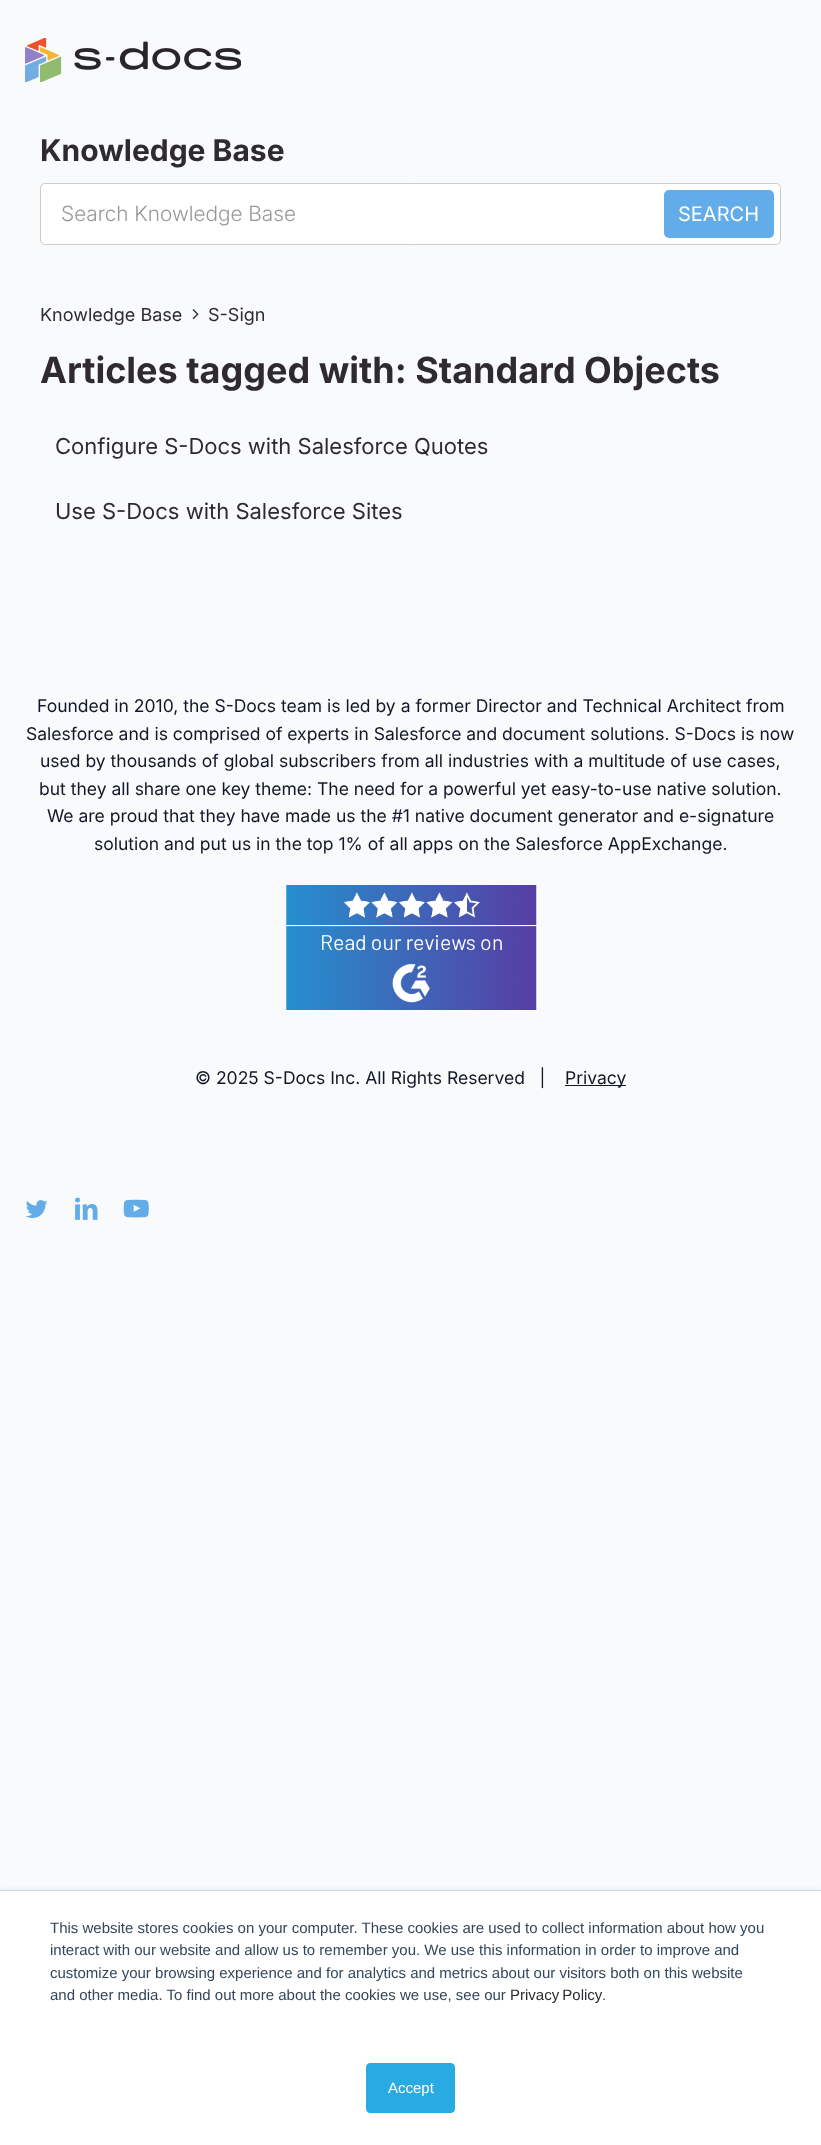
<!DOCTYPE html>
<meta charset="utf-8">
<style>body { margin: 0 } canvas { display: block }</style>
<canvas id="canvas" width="821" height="2145"></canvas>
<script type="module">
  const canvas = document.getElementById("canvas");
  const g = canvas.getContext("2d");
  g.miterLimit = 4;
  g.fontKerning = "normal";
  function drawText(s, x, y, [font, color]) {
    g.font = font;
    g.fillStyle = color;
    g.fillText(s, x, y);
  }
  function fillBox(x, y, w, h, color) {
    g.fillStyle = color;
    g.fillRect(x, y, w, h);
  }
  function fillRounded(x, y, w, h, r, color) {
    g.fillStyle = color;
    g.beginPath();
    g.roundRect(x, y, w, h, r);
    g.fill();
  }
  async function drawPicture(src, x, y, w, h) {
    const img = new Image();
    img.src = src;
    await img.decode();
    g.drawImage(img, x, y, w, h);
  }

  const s1 = ["bold 30px Inter", "#2F2A30"];
  const s2 = ["300 21px Inter", "#999999"];
  const s3 = ["20px Inter", "#FFFFFF"];
  const s4 = ["18px Inter", "#2F2A30"];
  const s5 = ["bold 36px Inter", "#2F2A30"];
  const s6 = ["22px Inter", "#2F2A30"];
  const s7 = ["17.5px Inter", "#101828"];
  const s8 = ["15px Liberation Sans", "#33475B"];
  const s9 = ["15px Liberation Sans", "#2F2A30"];
  const s10 = ["15px Liberation Sans", "#FFFFFF"];

  fillBox(0, 0, 821, 2145, "#F9FAFB");
  await drawPicture("pic1.png", 25, 38, 216, 44);
  drawText("Knowledge Base", 40, 161, s1);
  g.fillStyle = "#FFFFFF";
  g.beginPath();
  g.roundRect(40.5, 183.5, 740, 61, 4.5);
  g.fill();
  g.strokeStyle = "#CCCCCC";
  g.stroke();
  drawText("Search Knowledge Base", 61, 221, s2);
  fillRounded(664, 190, 110, 48, 5, "#61ACE9");
  drawText("SEARCH", 678, 221, s3);
  drawText("Knowledge Base", 40, 321, s4);
  await drawPicture("pic2.png", 192, 309, 7, 11);
  drawText("S-Sign", 208, 321, s4);
  drawText("Articles tagged with: Standard Objects", 40, 383, s5);
  drawText("Configure S-Docs with Salesforce Quotes", 55, 454, s6);
  drawText("Use S-Docs with Salesforce Sites", 55, 519, s6);
  drawText("Founded in 2010, the S-Docs team is led by a former Director and Technical Architect from", 37, 712, s7);
  drawText("Salesforce and is comprised of experts in Salesforce and document solutions. S-Docs is now", 26, 740, s7);
  drawText("used by thousands of global subscribers from all industries with a multitude of use cases,", 40, 767, s7);
  drawText("but they all share one key theme: The need for a powerful yet easy-to-use native solution.", 39, 795, s7);
  drawText("We are proud that they have made us the #1 native document generator and e-signature", 47, 822, s7);
  drawText("solution and put us in the top 1% of all apps on the Salesforce AppExchange.", 94, 850, s7);
  await drawPicture("pic3.png", 286, 885, 251, 125);
  drawText("© 2025 S-Docs Inc. All Rights Reserved   |", 195, 1084, s7);
  fillBox(565, 1085, 61, 1, "#101828");
  drawText("Privacy", 565, 1084, s7);
  await drawPicture("pic4.png", 25, 1200, 23, 18);
  await drawPicture("pic5.png", 75, 1197, 23, 23);
  await drawPicture("pic6.png", 123, 1199, 26, 19);
  g.fillStyle = "#EAF0F6";
  g.filter = "blur(2px)";
  g.beginPath();
  g.rect(0, 1889, 821, 255);
  g.fill();
  g.filter = "none";
  fillBox(0, 1891, 821, 254, "#FFFFFF");
  fillBox(0, 1890, 821, 1, "#CBD6E2");
  drawText("This website stores cookies on your computer. These cookies are used to collect information about how you", 50, 1933, s8);
  drawText("interact with our website and allow us to remember you. We use this information in order to improve and", 50, 1955, s8);
  drawText("customize your browsing experience and for analytics and metrics about our visitors both on this website", 50, 1978, s8);
  drawText("and other media. To find out more about the cookies we use, see our", 50, 2000, s8);
  g.wordSpacing = "-1px";
  drawText("Privacy Policy", 510, 2000, s9);
  g.wordSpacing = "0px";
  drawText(".", 602, 2000, s8);
  g.fillStyle = "#29AAE3";
  g.beginPath();
  g.roundRect(366.5, 2063.5, 88, 49, 3.5);
  g.fill();
  g.strokeStyle = "#29AAE3";
  g.stroke();
  drawText("Accept", 388, 2093, s10);
</script>
